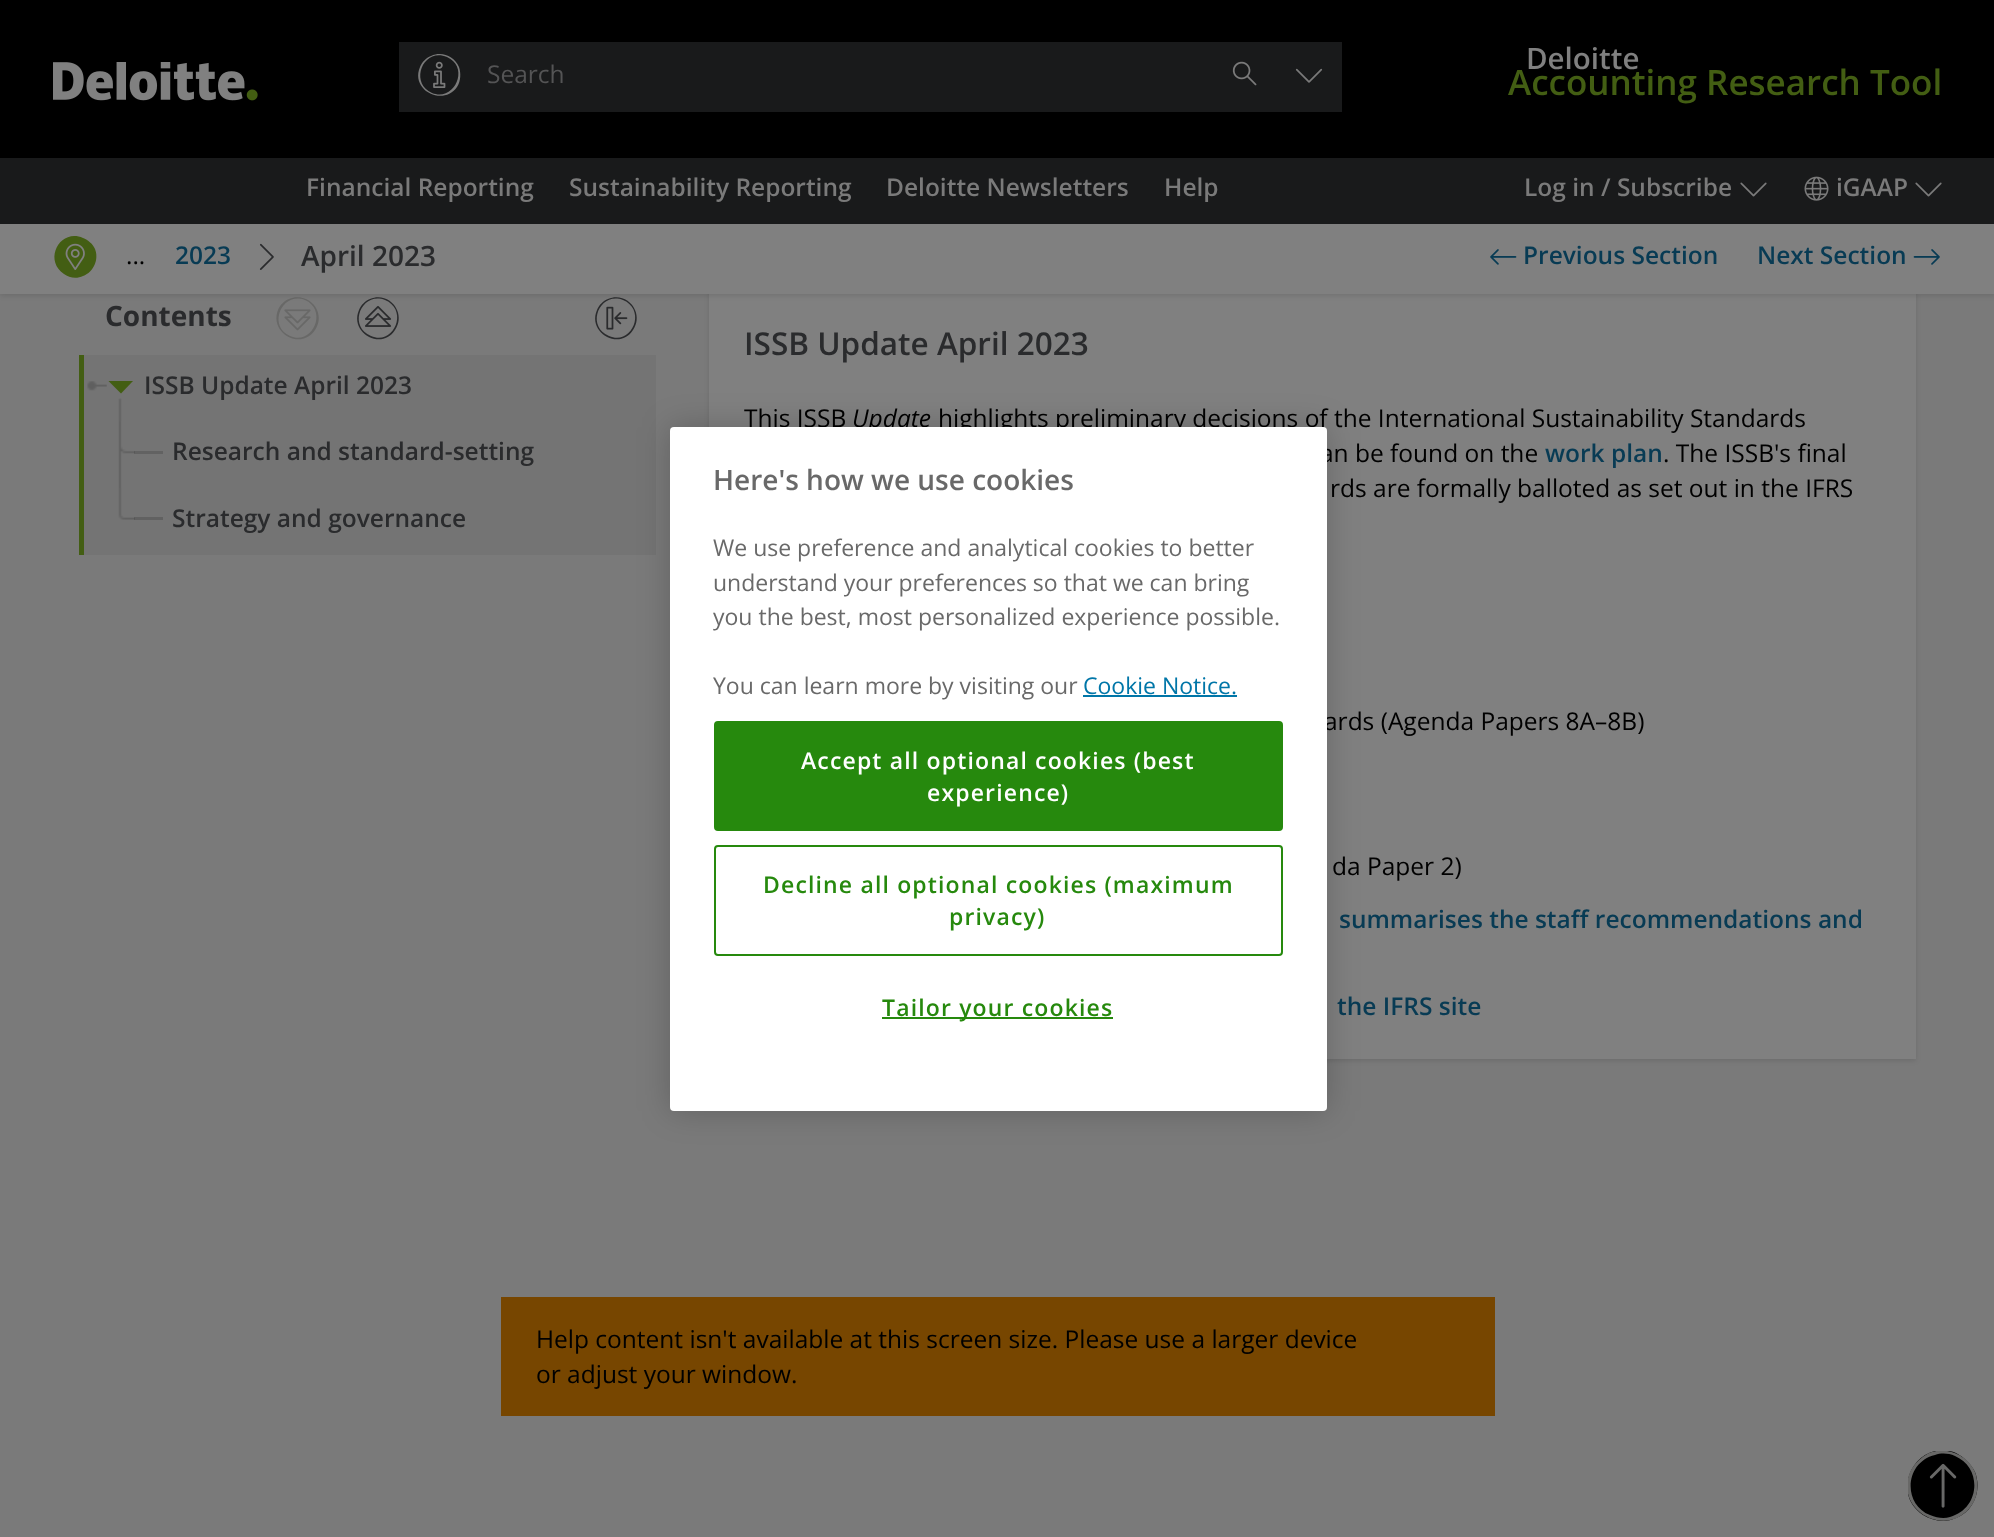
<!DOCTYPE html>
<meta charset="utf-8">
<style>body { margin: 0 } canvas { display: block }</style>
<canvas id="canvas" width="1994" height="1537"></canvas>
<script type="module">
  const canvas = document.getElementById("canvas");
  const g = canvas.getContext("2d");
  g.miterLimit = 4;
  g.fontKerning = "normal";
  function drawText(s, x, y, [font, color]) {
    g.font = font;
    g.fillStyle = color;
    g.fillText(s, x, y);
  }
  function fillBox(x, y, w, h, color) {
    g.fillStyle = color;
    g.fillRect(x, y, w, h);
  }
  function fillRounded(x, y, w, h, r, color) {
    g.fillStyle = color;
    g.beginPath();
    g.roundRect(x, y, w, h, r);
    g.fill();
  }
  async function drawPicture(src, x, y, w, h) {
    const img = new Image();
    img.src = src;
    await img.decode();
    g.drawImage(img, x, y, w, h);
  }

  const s1 = ["24.5px Open Sans", "#545455"];
  const s2 = ["600 29.5px Open Sans", "#808080"];
  const s3 = ["600 35px Open Sans", "#435E13"];
  const s4 = ["600 24.5px Open Sans", "#7A7A7A"];
  const s5 = ["24.5px Open Sans", "#000000"];
  const s6 = ["600 24.5px Open Sans", "#083B54"];
  const s7 = ["600 28px Open Sans", "#2A2B2D"];
  const s8 = ["bold 28px Open Sans", "#2A2B2D"];
  const s9 = ["600 24.5px Open Sans", "#2A2B2D"];
  const s10 = ["600 31.5px Open Sans", "#2A2B2D"];
  const s11 = ["italic 24.5px Open Sans", "#000000"];
  const s12 = ["600 28px Open Sans", "#696969"];
  const s13 = ["23px Open Sans", "#696969"];
  const s14 = ["23px Open Sans", "#0076A8"];
  const s15 = ["600 23px Open Sans", "#FFFFFF"];
  const s16 = ["600 23px Open Sans", "#26890D"];

  fillBox(0, 0, 1994, 1537, "#7A7A7A");
  g.fillStyle = "#686867";
  g.beginPath();
  g.moveTo(289, 299);
  g.bezierCurveTo(300, 294, 313, 300, 317, 310);
  g.bezierCurveTo(320, 317, 319, 324, 315, 330);
  g.bezierCurveTo(301, 351, 269, 333, 278, 310);
  g.bezierCurveTo(280, 305, 284, 301, 289, 299);
  g.closePath();
  g.moveTo(305, 300);
  g.bezierCurveTo(282, 291, 267, 326, 290, 336);
  g.bezierCurveTo(313, 346, 328, 310, 305, 300);
  g.closePath();
  g.fill();
  g.fillStyle = "#2A2B2D";
  g.beginPath();
  g.moveTo(370, 299);
  g.bezierCurveTo(381, 294, 393, 300, 397, 310);
  g.bezierCurveTo(400, 317, 399, 324, 395, 330);
  g.bezierCurveTo(382, 351, 349, 333, 359, 310);
  g.bezierCurveTo(361, 305, 365, 301, 370, 299);
  g.closePath();
  g.moveTo(385, 300);
  g.bezierCurveTo(362, 291, 347, 326, 371, 336);
  g.bezierCurveTo(394, 346, 409, 310, 385, 300);
  g.closePath();
  g.fill();
  g.beginPath();
  g.moveTo(608, 299);
  g.bezierCurveTo(619, 294, 631, 300, 635, 310);
  g.bezierCurveTo(638, 317, 637, 324, 633, 330);
  g.bezierCurveTo(620, 351, 587, 333, 597, 310);
  g.bezierCurveTo(599, 305, 603, 301, 608, 299);
  g.closePath();
  g.moveTo(623, 300);
  g.bezierCurveTo(600, 291, 585, 326, 609, 336);
  g.bezierCurveTo(632, 346, 647, 310, 623, 300);
  g.closePath();
  g.fill();
  g.fillStyle = "rgba(0, 0, 0, 0.1)";
  g.filter = "blur(2.5px)";
  g.beginPath();
  g.rect(709, 287, 1207, 774);
  g.fill();
  g.filter = "none";
  fillBox(709, 294, 1207, 765, "#808080");
  g.fillStyle = "rgba(0, 0, 0, 0.1)";
  g.filter = "blur(2.5px)";
  g.beginPath();
  g.rect(0, 2, 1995, 294);
  g.fill();
  g.filter = "none";
  fillBox(0, 0, 1994, 158, "#000000");
  await drawPicture("pic1.png", 53, 62, 192, 39);
  await drawPicture("pic2.png", 246, 89, 12, 12);
  fillBox(399, 42, 943, 70, "#191A1B");
  g.fillStyle = "#7A7A7A";
  g.beginPath();
  g.moveTo(431, 56);
  g.bezierCurveTo(442, 51, 454, 56, 459, 67);
  g.bezierCurveTo(461, 73, 461, 81, 457, 87);
  g.bezierCurveTo(443, 107, 410, 90, 420, 67);
  g.bezierCurveTo(422, 62, 426, 58, 431, 56);
  g.closePath();
  g.moveTo(447, 57);
  g.bezierCurveTo(423, 47, 409, 83, 432, 93);
  g.bezierCurveTo(455, 102, 470, 67, 447, 57);
  g.closePath();
  g.fill();
  await drawPicture("pic3.png", 433, 61, 13, 27);
  drawText("Search", 487, 83, s1);
  await drawPicture("pic4.png", 1232, 61, 25, 25);
  await drawPicture("pic5.png", 1295, 68, 28, 15);
  drawText("Deloitte", 1526, 69, s2);
  drawText("Accounting Research Tool", 1508, 95, s3);
  fillBox(0, 158, 1994, 66, "#191A1B");
  drawText("Financial Reporting", 306, 196, s4);
  drawText("Sustainability Reporting", 569, 196, s4);
  drawText("Deloitte Newsletters", 886, 196, s4);
  drawText("Help", 1164, 196, s4);
  drawText("Log in / Subscribe", 1524, 196, s4);
  await drawPicture("pic6.png", 1740, 182, 27, 15);
  await drawPicture("pic7.png", 1804, 176, 25, 25);
  drawText("iGAAP", 1836, 196, s4);
  await drawPicture("pic6.png", 1915, 182, 27, 15);
  fillBox(0, 224, 1994, 70, "#808080");
  g.fillStyle = "#435E13";
  g.beginPath();
  g.moveTo(95, 249);
  g.bezierCurveTo(99, 259, 94, 272, 83, 276);
  g.bezierCurveTo(77, 279, 69, 278, 64, 274);
  g.bezierCurveTo(43, 260, 60, 228, 83, 238);
  g.bezierCurveTo(88, 240, 93, 244, 95, 249);
  g.closePath();
  g.fill();
  await drawPicture("pic8.png", 65, 243, 20, 27);
  drawText("...", 126, 264, s5);
  drawText("2023", 175, 264, s6);
  await drawPicture("pic9.png", 259, 243, 15, 27);
  drawText("April 2023", 301, 266, s7);
  await drawPicture("pic10.png", 1490, 249, 27, 16);
  drawText("Previous Section", 1523, 264, s6);
  drawText("Next Section", 1757, 264, s6);
  await drawPicture("pic11.png", 1913, 249, 27, 16);
  drawText("Contents", 105, 326, s8);
  await drawPicture("pic12.png", 284, 309, 27, 22);
  await drawPicture("pic13.png", 365, 306, 27, 21);
  await drawPicture("pic14.png", 606, 306, 22, 24);
  fillBox(84, 355, 572, 200, "#747474");
  fillBox(79, 355, 5, 200, "#435E13");
  await drawPicture("pic15.png", 87, 381, 20, 10);
  await drawPicture("pic16.png", 118, 398, 4, 24);
  g.beginPath();
  g.moveTo(133, 381);
  g.lineTo(121, 393.5);
  g.lineTo(108.5, 381);
  g.closePath();
  g.fill();
  drawText("ISSB Update April 2023", 144, 394, s9);
  await drawPicture("pic17.png", 118, 421, 17, 67);
  fillBox(134, 451, 29, 3, "rgba(0, 0, 0, 0.15)");
  drawText("Research and standard-setting", 172, 460, s9);
  await drawPicture("pic18.png", 118, 488, 17, 32);
  fillBox(134, 517, 29, 3, "rgba(0, 0, 0, 0.16)");
  drawText("Strategy and governance", 172, 527, s9);
  drawText("ISSB Update April 2023", 744, 355, s10);
  drawText("This ISSB", 744, 427, s5);
  drawText("Update", 852, 427, s11);
  drawText("highlights preliminary decisions of the International Sustainability Standards", 938, 427, s5);
  drawText("an be found on the", 1320, 462, s5);
  drawText("work plan", 1545, 462, s6);
  drawText(". The ISSB's final", 1663, 462, s5);
  drawText("rds are formally balloted as set out in the IFRS", 1330, 497, s5);
  drawText("ards (Agenda Papers 8A–8B)", 1324, 730, s5);
  drawText("da Paper 2)", 1332, 875, s5);
  drawText("summarises the staff recommendations and", 1339, 928, s6);
  drawText("the IFRS site", 1337, 1015, s6);
  g.fillStyle = "rgba(0, 0, 0, 0.2)";
  g.filter = "blur(16px)";
  g.beginPath();
  g.roundRect(670, 427, 657, 684, 4);
  g.fill();
  g.filter = "none";
  fillRounded(670, 427, 657, 684, 4, "#FFFFFF");
  drawText("Here's how we use cookies", 713, 490, s12);
  drawText("We use preference and analytical cookies to better", 713, 556, s13);
  drawText("understand your preferences so that we can bring", 713, 591, s13);
  drawText("you the best, most personalized experience possible.", 713, 625, s13);
  drawText("You can learn more by visiting our", 713, 694, s13);
  drawText("Cookie Notice.", 1083, 694, s14);
  fillBox(1083, 695, 154, 2, "#0076A8");
  g.fillStyle = "#26890D";
  g.beginPath();
  g.roundRect(715, 722, 567, 108, 3);
  g.fill();
  g.strokeStyle = "#26890D";
  g.lineWidth = 2;
  g.stroke();
  g.letterSpacing = "1.15px";
  drawText("Accept all optional cookies (best", 801, 769, s15);
  drawText("experience)", 927, 801, s15);
  g.beginPath();
  g.roundRect(715, 846, 567, 109, 3);
  g.stroke();
  drawText("Decline all optional cookies (maximum", 763, 893, s16);
  drawText("privacy)", 949, 925, s16);
  fillBox(882, 1017, 231, 2, "#26890D");
  drawText("Tailor your cookies", 882, 1016, s16);
  fillBox(501, 1297, 994, 119, "#774600");
  g.letterSpacing = "0px";
  drawText("Help content isn't available at this screen size. Please use a larger device", 536, 1348, s5);
  drawText("or adjust your window.", 536, 1383, s5);
  g.save();
  g.beginPath();
  g.rect(1908, 1451, 70, 70);
  g.clip();
  g.beginPath();
  g.moveTo(1975, 1472);
  g.bezierCurveTo(1982, 1490, 1974, 1511, 1956, 1518);
  g.bezierCurveTo(1945, 1523, 1933, 1521, 1923, 1515);
  g.bezierCurveTo(1888, 1492, 1917, 1437, 1956, 1453);
  g.bezierCurveTo(1964, 1457, 1971, 1464, 1975, 1472);
  g.closePath();
  g.fill();
  g.fillStyle = "#686867";
  g.beginPath();
  g.moveTo(1929, 1453);
  g.bezierCurveTo(1947, 1446, 1968, 1455, 1975, 1472);
  g.bezierCurveTo(1979, 1483, 1978, 1496, 1972, 1505);
  g.bezierCurveTo(1948, 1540, 1894, 1511, 1910, 1472);
  g.bezierCurveTo(1914, 1464, 1921, 1457, 1929, 1453);
  g.closePath();
  g.moveTo(1955, 1456);
  g.bezierCurveTo(1948, 1453, 1941, 1453, 1935, 1455);
  g.bezierCurveTo(1905, 1462, 1902, 1504, 1930, 1515);
  g.bezierCurveTo(1937, 1518, 1944, 1519, 1950, 1517);
  g.bezierCurveTo(1980, 1509, 1983, 1468, 1955, 1456);
  g.closePath();
  g.fill();
  g.restore();
  await drawPicture("pic19.png", 1929, 1463, 28, 45);
</script>
